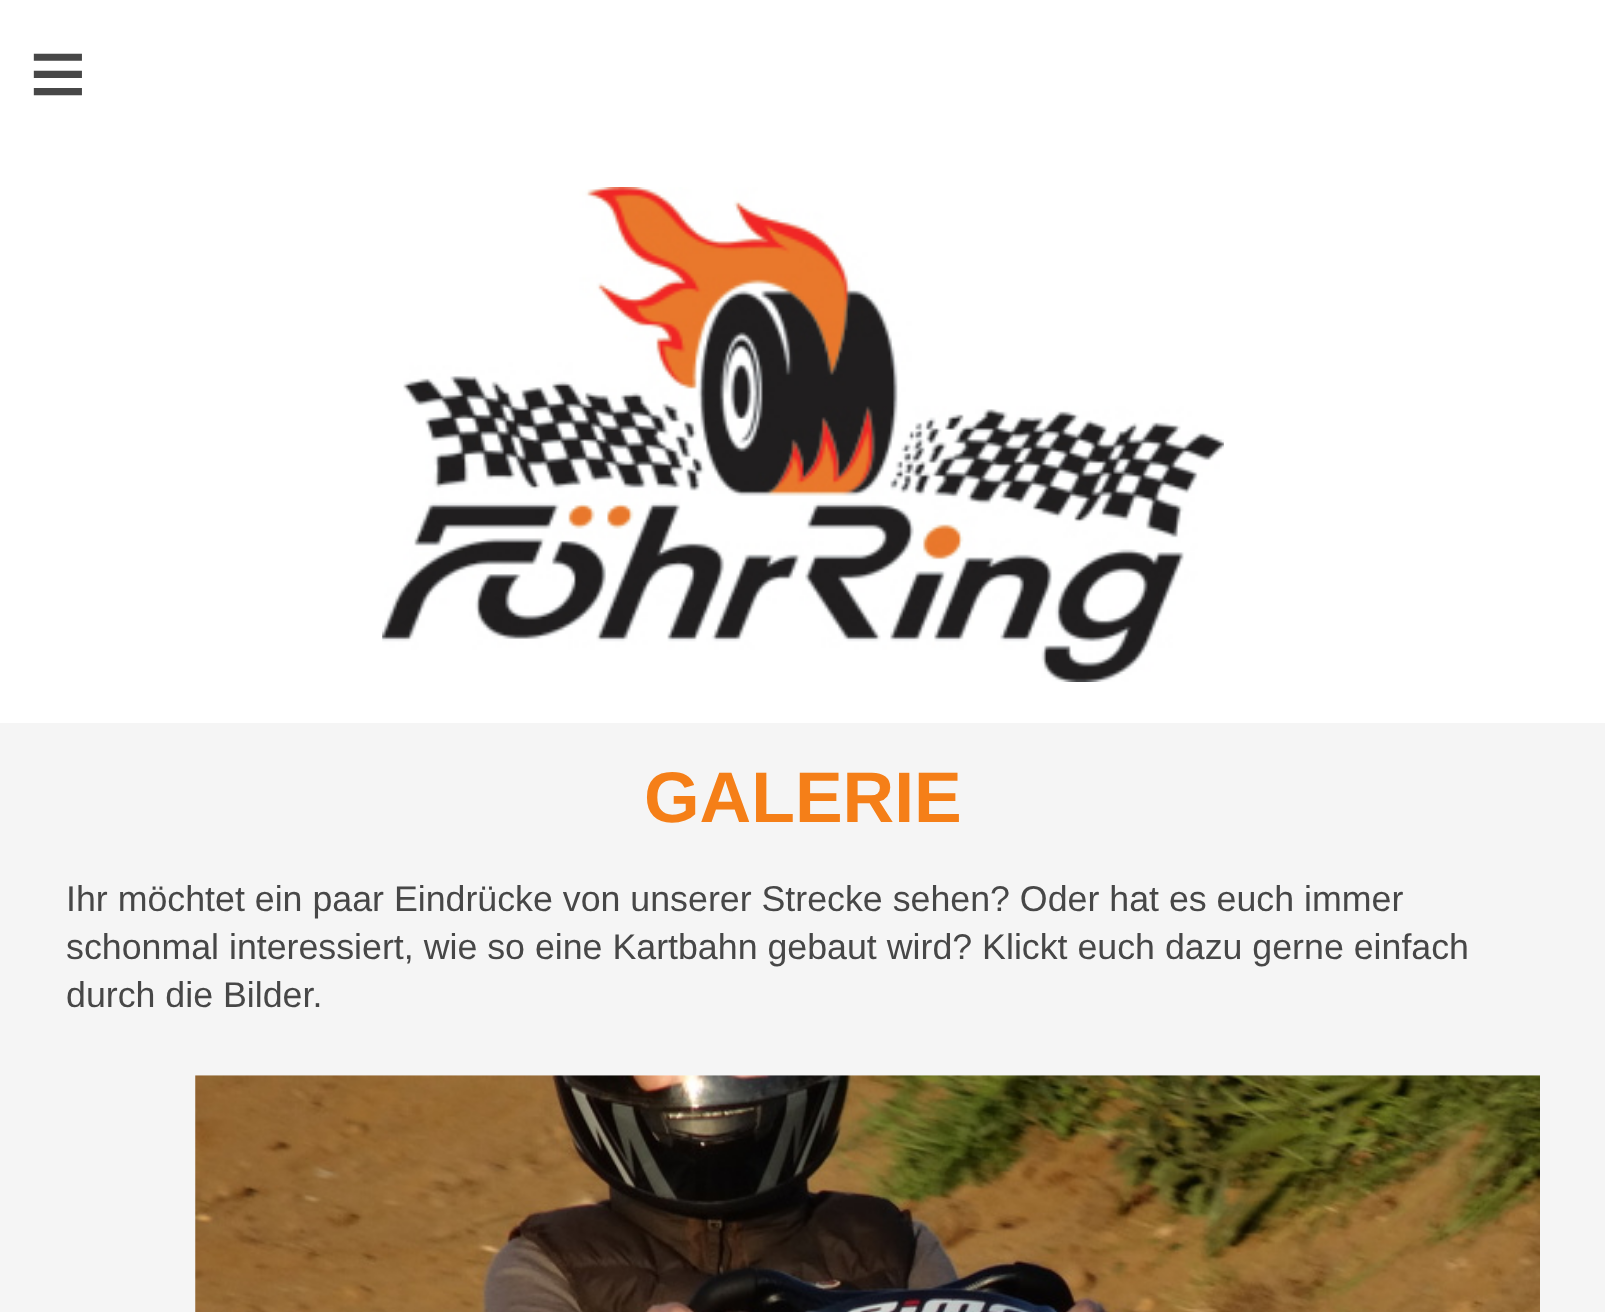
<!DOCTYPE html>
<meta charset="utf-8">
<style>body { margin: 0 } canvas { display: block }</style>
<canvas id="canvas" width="1605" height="1312"></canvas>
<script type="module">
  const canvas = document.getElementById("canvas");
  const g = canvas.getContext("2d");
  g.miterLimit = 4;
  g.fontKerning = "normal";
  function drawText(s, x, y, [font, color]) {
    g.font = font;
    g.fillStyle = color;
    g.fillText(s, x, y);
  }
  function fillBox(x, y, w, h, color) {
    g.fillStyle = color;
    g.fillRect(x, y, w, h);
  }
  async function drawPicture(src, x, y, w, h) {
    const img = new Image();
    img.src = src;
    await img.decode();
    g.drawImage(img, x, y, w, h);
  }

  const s1 = ["99px Liberation Sans", "#474747"];
  const s2 = ["bold 71.5px Liberation Sans", "#F57F18"];
  const s3 = ["35.75px Liberation Sans", "#474747"];

  fillBox(0, 0, 1605, 1312, "#FFFFFF");
  g.letterSpacing = "29px";
  drawText("≡", 29, 107, s1);
  await drawPicture("pic1.png", 382, 187, 842, 495);
  fillBox(0, 723, 1605, 589, "#F5F5F5");
  g.letterSpacing = "0px";
  drawText("GALERIE", 644, 822, s2);
  drawText("Ihr möchtet ein paar Eindrücke von unserer Strecke sehen? Oder hat es euch immer", 66, 911, s3);
  drawText("schonmal interessiert, wie so eine Kartbahn gebaut wird? Klickt euch dazu gerne einfach", 66, 959, s3);
  drawText("durch die Bilder.", 66, 1007, s3);
  await drawPicture("pic2.png", 195, 1075, 1345, 237);
</script>
